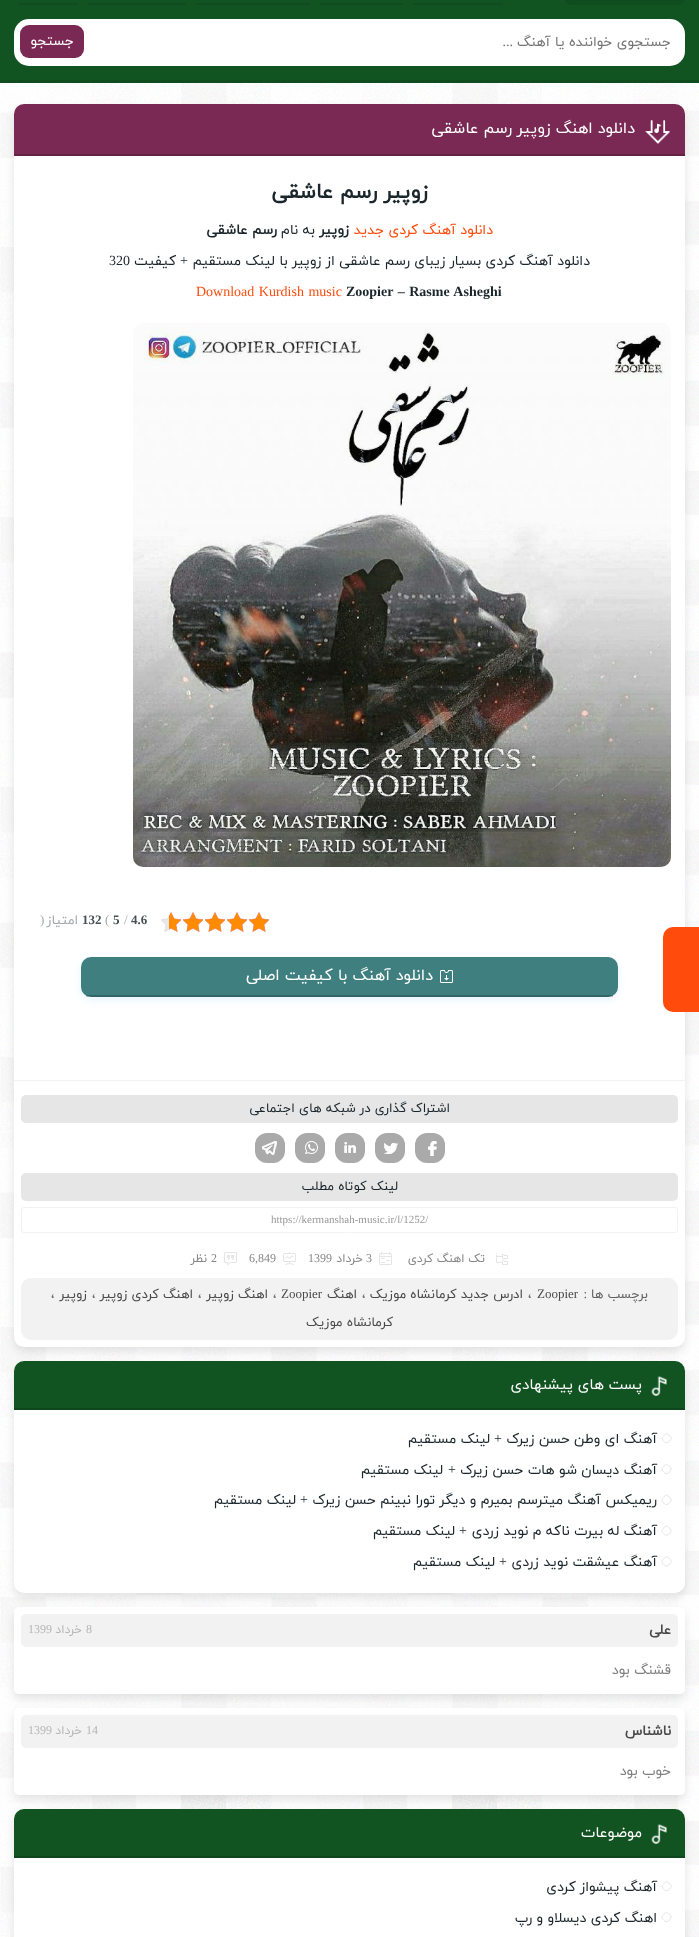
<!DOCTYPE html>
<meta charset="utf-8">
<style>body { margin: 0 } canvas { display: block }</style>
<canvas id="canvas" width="699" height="1937"></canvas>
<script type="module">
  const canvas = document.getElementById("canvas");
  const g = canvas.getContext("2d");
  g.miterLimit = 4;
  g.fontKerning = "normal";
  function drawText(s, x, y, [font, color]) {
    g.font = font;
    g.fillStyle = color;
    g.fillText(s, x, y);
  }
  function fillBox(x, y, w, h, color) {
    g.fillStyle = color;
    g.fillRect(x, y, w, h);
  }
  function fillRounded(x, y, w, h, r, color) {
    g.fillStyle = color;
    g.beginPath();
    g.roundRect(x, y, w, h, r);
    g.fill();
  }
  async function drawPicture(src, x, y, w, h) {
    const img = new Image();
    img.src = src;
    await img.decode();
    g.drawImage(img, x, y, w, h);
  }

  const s1 = ["14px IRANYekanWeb", "#757575"];
  const s2 = ["14px Liberation Serif", "#757575"];
  const s3 = ["14px IRANYekanWeb", "#FFFFFF"];
  const s4 = ["16px IRANYekanWeb", "#FFFFFF"];
  const s5 = ["bold 21px IRANYekanWeb", "#1B262C"];
  const s6 = ["14px IRANYekanWeb", "#FF4B0C"];
  const s7 = ["bold 14px IRANYekanWeb", "#1B262C"];
  const s8 = ["14px IRANYekanWeb", "#1B262C"];
  const s9 = ["14px Liberation Serif", "#1B262C"];
  const s10 = ["bold 14px Liberation Serif", "#1B262C"];
  const s11 = ["14px Liberation Serif", "#FF4B0C"];
  const s12 = ["bold 13px Liberation Serif", "#495156"];
  const s13 = ["13px Liberation Serif", "#A4A8AB"];
  const s14 = ["13px IRANYekanWeb", "#A4A8AB"];
  const s15 = ["13px IRANYekanWeb", "#1B262C"];
  const s16 = ["11px Liberation Serif", "#999999"];
  const s17 = ["12px IRANYekanWeb", "#888888"];
  const s18 = ["12px Liberation Serif", "#888888"];
  const s19 = ["13px IRANYekanWeb", "#616161"];
  const s20 = ["13px Liberation Serif", "#616161"];
  const s21 = ["13px Liberation Serif", "#494949"];
  const s22 = ["13px IRANYekanWeb", "#494949"];
  const s23 = ["15px IRANYekanWeb", "#FFFFFF"];
  const s24 = ["bold 14px IRANYekanWeb", "#494949"];
  const s25 = ["12px Liberation Serif", "#B6B6B6"];
  const s26 = ["12px IRANYekanWeb", "#B6B6B6"];
  const s27 = ["14px IRANYekanWeb", "#808080"];

  fillBox(0, 0, 699, 1937, "#FFFFFF");
  await drawPicture("pic1.png", 0, 83, 699, 1854);
  fillBox(0, 0, 699, 80, "#115421");
  fillBox(0, 80, 699, 3, "#0F4C1E");
  fillRounded(565, -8, 120, 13, 8, "#0F4C1E");
  fillBox(413, 3, 90, 2, "#0F4C1E");
  fillBox(320, 3, 83, 2, "#0F4C1E");
  fillBox(196, 3, 114, 2, "#0F4C1E");
  fillBox(88, 3, 98, 2, "#0F4C1E");
  fillBox(19, 3, 59, 2, "#0F4C1E");
  fillRounded(14, 19, 671, 47, 15, "#FFFFFF");
  g.direction = "rtl";
  drawText("جستجوی خواننده یا آهنگ", 671, 46, s1);
  drawText("...", 513, 46, s2);
  fillRounded(20, 25, 64, 33, 9, "#7A2854");
  drawText("جستجو", 74, 45, s3);
  g.fillStyle = "rgba(0, 0, 0, 0.1)";
  g.filter = "blur(5px)";
  g.beginPath();
  g.roundRect(14, 109, 671, 1243, 10);
  g.fill();
  g.filter = "none";
  fillRounded(14, 104, 671, 1243, 10, "#FFFFFF");
  g.fillStyle = "#FF4B0C";
  g.beginPath();
  g.roundRect(663, 927, 36, 85, [10, 0, 0, 10]);
  g.fill();
  g.fillStyle = "#FFFFFF";
  g.save();
  g.translate(751, 1002);
  g.rotate(-90 * Math.PI / 180);
  g.fillText("پست بعدی", 0, 0);
  g.restore();
  g.fillStyle = "#7A2854";
  g.beginPath();
  g.roundRect(14, 104, 671, 52, [10, 10, 0, 0]);
  g.fill();
  fillBox(14, 154, 671, 2, "#622043");
  await drawPicture("pic2.png", 645, 120, 25, 24);
  drawText("دانلود اهنگ زوپیر رسم عاشقی", 635, 133, s4);
  drawText("زوپیر رسم عاشقی", 428, 198, s5);
  drawText("دانلود آهنگ کردی جدید", 493, 234, s6);
  drawText("زوپیر", 349, 234, s7);
  drawText("به نام", 315, 234, s8);
  drawText("رسم عاشقی", 277, 234, s7);
  drawText("دانلود آهنگ کردی بسیار زیبای رسم عاشقی از زوپیر با لینک مستقیم", 590, 265, s8);
  drawText("+", 188, 265, s9);
  drawText("کیفیت", 176, 265, s8);
  g.direction = "ltr";
  drawText("320", 109, 265, s9);
  g.wordSpacing = "1px";
  drawText("Zoopier – Rasme Asheghi", 346, 296, s10);
  drawText("Download Kurdish music", 196, 296, s11);
  await drawPicture("pic3.png", 133, 323, 538, 544);
  await drawPicture("pic4.png", 249, 912, 20, 20);
  await drawPicture("pic4.png", 227, 912, 20, 20);
  await drawPicture("pic4.png", 205, 912, 20, 20);
  await drawPicture("pic4.png", 183, 912, 20, 20);
  await drawPicture("pic4.png", 161, 912, 20, 20);
  await drawPicture("pic5.png", 249, 912, 20, 20);
  await drawPicture("pic5.png", 227, 912, 20, 20);
  await drawPicture("pic5.png", 205, 912, 20, 20);
  await drawPicture("pic5.png", 183, 912, 20, 20);
  await drawPicture("pic6.png", 169, 912, 12, 20);
  g.wordSpacing = "0px";
  drawText("4.6", 131, 924, s12);
  drawText("/", 124, 924, s13);
  drawText("5", 113, 924, s12);
  drawText("(", 105, 924, s13);
  drawText("132", 82, 924, s12);
  g.direction = "rtl";
  drawText("امتیاز", 78, 924, s14);
  g.direction = "ltr";
  drawText(")", 40, 924, s13);
  g.fillStyle = "rgba(132, 204, 255, 0.2)";
  g.filter = "blur(4px)";
  g.beginPath();
  g.roundRect(81, 960, 537, 40, 10);
  g.fill();
  g.filter = "none";
  fillRounded(81, 957, 537, 40, 10, "#3F7F7F");
  fillBox(86, 995, 527, 2, "rgba(0, 0, 0, 0.2)");
  await drawPicture("pic7.png", 440, 970, 13, 13);
  g.direction = "rtl";
  drawText("دانلود آهنگ با کیفیت اصلی", 433, 980, s4);
  fillBox(14, 1080, 671, 1, "#F2F2F2");
  fillRounded(21, 1095, 657, 28, 5, "#E6E6E6");
  drawText("اشتراک گذاری در شبکه های اجتماعی", 450, 1112, s15);
  fillRounded(415, 1133, 30, 30, 12, "#AAAAAA");
  await drawPicture("pic8.png", 428, 1141, 9, 15);
  fillRounded(375, 1133, 30, 30, 12, "#AAAAAA");
  await drawPicture("pic9.png", 384, 1143, 14, 11);
  fillRounded(335, 1133, 30, 30, 12, "#AAAAAA");
  await drawPicture("pic10.png", 344, 1142, 12, 11);
  fillRounded(295, 1133, 30, 30, 12, "#AAAAAA");
  await drawPicture("pic11.png", 305, 1141, 13, 13);
  fillRounded(255, 1133, 30, 30, 12, "#AAAAAA");
  await drawPicture("pic12.png", 262, 1141, 15, 14);
  fillRounded(21, 1173, 657, 28, 5, "#E6E6E6");
  drawText("لینک کوتاه مطلب", 398, 1190, s15);
  g.beginPath();
  g.roundRect(21.5, 1207.5, 656, 25, 2.5);
  g.strokeStyle = "#F2F2F2";
  g.stroke();
  g.direction = "ltr";
  drawText("https://kermanshah-music.ir/l/1252/", 271, 1223, s16);
  await drawPicture("pic13.png", 496, 1253, 12, 12);
  g.direction = "rtl";
  drawText("تک اهنگ کردی", 485, 1262, s17);
  await drawPicture("pic14.png", 379, 1252, 13, 13);
  g.direction = "ltr";
  drawText("3", 366, 1262, s18);
  g.direction = "rtl";
  drawText("خرداد", 363, 1262, s17);
  g.direction = "ltr";
  drawText("1399", 308, 1262, s18);
  await drawPicture("pic15.png", 283, 1252, 13, 13);
  drawText("6,849", 249, 1262, s18);
  await drawPicture("pic16.png", 224, 1252, 13, 13);
  drawText("2", 211, 1262, s18);
  g.direction = "rtl";
  drawText("نظر", 207, 1262, s17);
  fillRounded(21, 1278, 657, 62, 10, "#F2F2F2");
  drawText("برچسب ها", 648, 1298, s19);
  drawText(":", 587, 1298, s20);
  g.direction = "ltr";
  drawText("Zoopier", 537, 1298, s21);
  drawText("،", 528, 1298, s19);
  g.direction = "rtl";
  drawText("ادرس جدید کرمانشاه موزیک", 523, 1298, s22);
  g.direction = "ltr";
  drawText("،", 362, 1298, s19);
  g.direction = "rtl";
  drawText("اهنگ", 357, 1298, s22);
  g.direction = "ltr";
  drawText("Zoopier", 281, 1298, s21);
  drawText("،", 273, 1298, s19);
  g.direction = "rtl";
  drawText("اهنگ زوپیر", 268, 1298, s22);
  g.direction = "ltr";
  drawText("،", 198, 1298, s19);
  g.direction = "rtl";
  drawText("اهنگ کردی زوپیر", 193, 1298, s22);
  g.direction = "ltr";
  drawText("،", 92, 1298, s19);
  g.direction = "rtl";
  drawText("زوپیر", 87, 1298, s22);
  g.direction = "ltr";
  drawText("،", 51, 1298, s19);
  g.direction = "rtl";
  drawText("کرمانشاه موزیک", 393, 1326, s22);
  g.fillStyle = "rgba(0, 0, 0, 0.1)";
  g.filter = "blur(5px)";
  g.beginPath();
  g.roundRect(14, 1612, 671, 87, 5);
  g.fill();
  g.filter = "none";
  fillRounded(14, 1607, 671, 87, 5, "#FFFFFF");
  g.fillStyle = "rgba(0, 0, 0, 0.1)";
  g.filter = "blur(5px)";
  g.beginPath();
  g.roundRect(14, 1366, 671, 232, 10);
  g.fill();
  g.filter = "none";
  fillRounded(14, 1361, 671, 232, 10, "#FFFFFF");
  g.fillStyle = "#115421";
  g.beginPath();
  g.roundRect(14, 1361, 671, 49, [10, 10, 0, 0]);
  g.fill();
  fillBox(14, 1408, 671, 2, "#0E471C");
  await drawPicture("pic17.png", 651, 1375, 16, 21);
  drawText("پست های پیشنهادی", 642, 1389, s23);
  g.beginPath();
  g.moveTo(668.5, 1434.5);
  g.lineTo(671, 1437.5);
  g.bezierCurveTo(672, 1440, 667.5, 1444.5, 664.5, 1442);
  g.bezierCurveTo(662.5, 1440, 660.5, 1438.5, 663.5, 1436);
  g.bezierCurveTo(664.5, 1434.5, 666.5, 1432.5, 668.5, 1434.5);
  g.closePath();
  g.moveTo(668.5, 1465.5);
  g.lineTo(671, 1468);
  g.bezierCurveTo(672, 1470.5, 667.5, 1475.5, 664.5, 1473);
  g.bezierCurveTo(662.5, 1471, 660.5, 1469.5, 663.5, 1466.5);
  g.bezierCurveTo(664.5, 1465.5, 666.5, 1463.5, 668.5, 1465.5);
  g.closePath();
  g.strokeStyle = "#E5E5E5";
  g.stroke();
  drawText("آهنگ ای وطن حسن زیرک", 657, 1443, s8);
  drawText("+", 502, 1443, s9);
  drawText("لینک مستقیم", 490, 1443, s8);
  drawText("آهنگ دیسان شو هات حسن زیرک", 657, 1474, s8);
  drawText("+", 456, 1474, s9);
  drawText("لینک مستقیم", 443, 1474, s8);
  g.beginPath();
  g.moveTo(668.5, 1496);
  g.lineTo(671, 1499);
  g.bezierCurveTo(672, 1501.5, 667.5, 1506, 664.5, 1504);
  g.bezierCurveTo(662.5, 1501.5, 660.5, 1500, 663.5, 1497.5);
  g.bezierCurveTo(664.5, 1496, 666.5, 1494, 668.5, 1496);
  g.closePath();
  g.moveTo(668.5, 1527);
  g.lineTo(671, 1530);
  g.bezierCurveTo(672, 1532.5, 667.5, 1537, 664.5, 1534.5);
  g.bezierCurveTo(662.5, 1532.5, 660.5, 1531, 663.5, 1528.5);
  g.bezierCurveTo(664.5, 1527, 666.5, 1525, 668.5, 1527);
  g.closePath();
  g.stroke();
  drawText("ریمیکس آهنگ میترسم بمیرم و دیگر تورا نبینم حسن زیرک", 657, 1504, s8);
  drawText("+", 308, 1504, s9);
  drawText("لینک مستقیم", 296, 1504, s8);
  drawText("آهنگ له بیرت ناکه م نوید زردی", 657, 1535, s8);
  drawText("+", 467, 1535, s9);
  drawText("لینک مستقیم", 455, 1535, s8);
  g.beginPath();
  g.moveTo(668.5, 1557.5);
  g.lineTo(671, 1560.5);
  g.bezierCurveTo(672, 1563, 667.5, 1568, 664.5, 1565.5);
  g.bezierCurveTo(662.5, 1563, 660.5, 1562, 663.5, 1559);
  g.bezierCurveTo(664.5, 1558, 666.5, 1556, 668.5, 1557.5);
  g.closePath();
  g.stroke();
  drawText("آهنگ عيشقت نوید زردی", 657, 1566, s8);
  drawText("+", 507, 1566, s9);
  drawText("لینک مستقیم", 495, 1566, s8);
  fillRounded(21, 1614, 657, 33, 5, "#F2F2F2");
  drawText("علی", 671, 1634, s24);
  g.direction = "ltr";
  drawText("8", 86, 1633, s25);
  g.direction = "rtl";
  drawText("خرداد", 82, 1633, s26);
  g.direction = "ltr";
  drawText("1399", 28, 1633, s25);
  g.direction = "rtl";
  drawText("قشنگ بود", 671, 1674, s27);
  g.fillStyle = "rgba(0, 0, 0, 0.1)";
  g.filter = "blur(5px)";
  g.beginPath();
  g.roundRect(14, 1713, 671, 87, 5);
  g.fill();
  g.filter = "none";
  fillRounded(14, 1708, 671, 87, 5, "#FFFFFF");
  fillRounded(21, 1715, 657, 33, 5, "#F2F2F2");
  drawText("ناشناس", 671, 1735, s24);
  g.direction = "ltr";
  drawText("14", 86, 1734, s25);
  g.direction = "rtl";
  drawText("خرداد", 82, 1734, s26);
  g.direction = "ltr";
  drawText("1399", 28, 1734, s25);
  g.direction = "rtl";
  drawText("خوب بود", 671, 1775, s27);
  g.fillStyle = "rgba(0, 0, 0, 0.1)";
  g.filter = "blur(5px)";
  g.beginPath();
  g.roundRect(14, 1814, 671, 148, 10);
  g.fill();
  g.filter = "none";
  fillRounded(14, 1809, 671, 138, 10, "#FFFFFF");
  g.fillStyle = "#115421";
  g.beginPath();
  g.roundRect(14, 1809, 671, 49, [10, 10, 0, 0]);
  g.fill();
  fillBox(14, 1856, 671, 2, "#0E471C");
  await drawPicture("pic17.png", 651, 1823, 16, 21);
  drawText("موضوعات", 642, 1837, s23);
  g.beginPath();
  g.moveTo(668.5, 1882.5);
  g.lineTo(671, 1885.5);
  g.bezierCurveTo(672, 1888, 667.5, 1892.5, 664.5, 1890);
  g.bezierCurveTo(662.5, 1888, 660.5, 1886.5, 663.5, 1884);
  g.bezierCurveTo(664.5, 1882.5, 666.5, 1880.5, 668.5, 1882.5);
  g.closePath();
  g.moveTo(668.5, 1913.5);
  g.lineTo(671, 1916);
  g.bezierCurveTo(672, 1918.5, 667.5, 1923.5, 664.5, 1921);
  g.bezierCurveTo(662.5, 1919, 660.5, 1917.5, 663.5, 1914.5);
  g.bezierCurveTo(664.5, 1913.5, 666.5, 1911.5, 668.5, 1913.5);
  g.closePath();
  g.stroke();
  drawText("آهنگ پیشواز کردی", 657, 1891, s8);
  drawText("اهنگ کردی دیسلاو و رپ", 657, 1922, s8);
</script>
